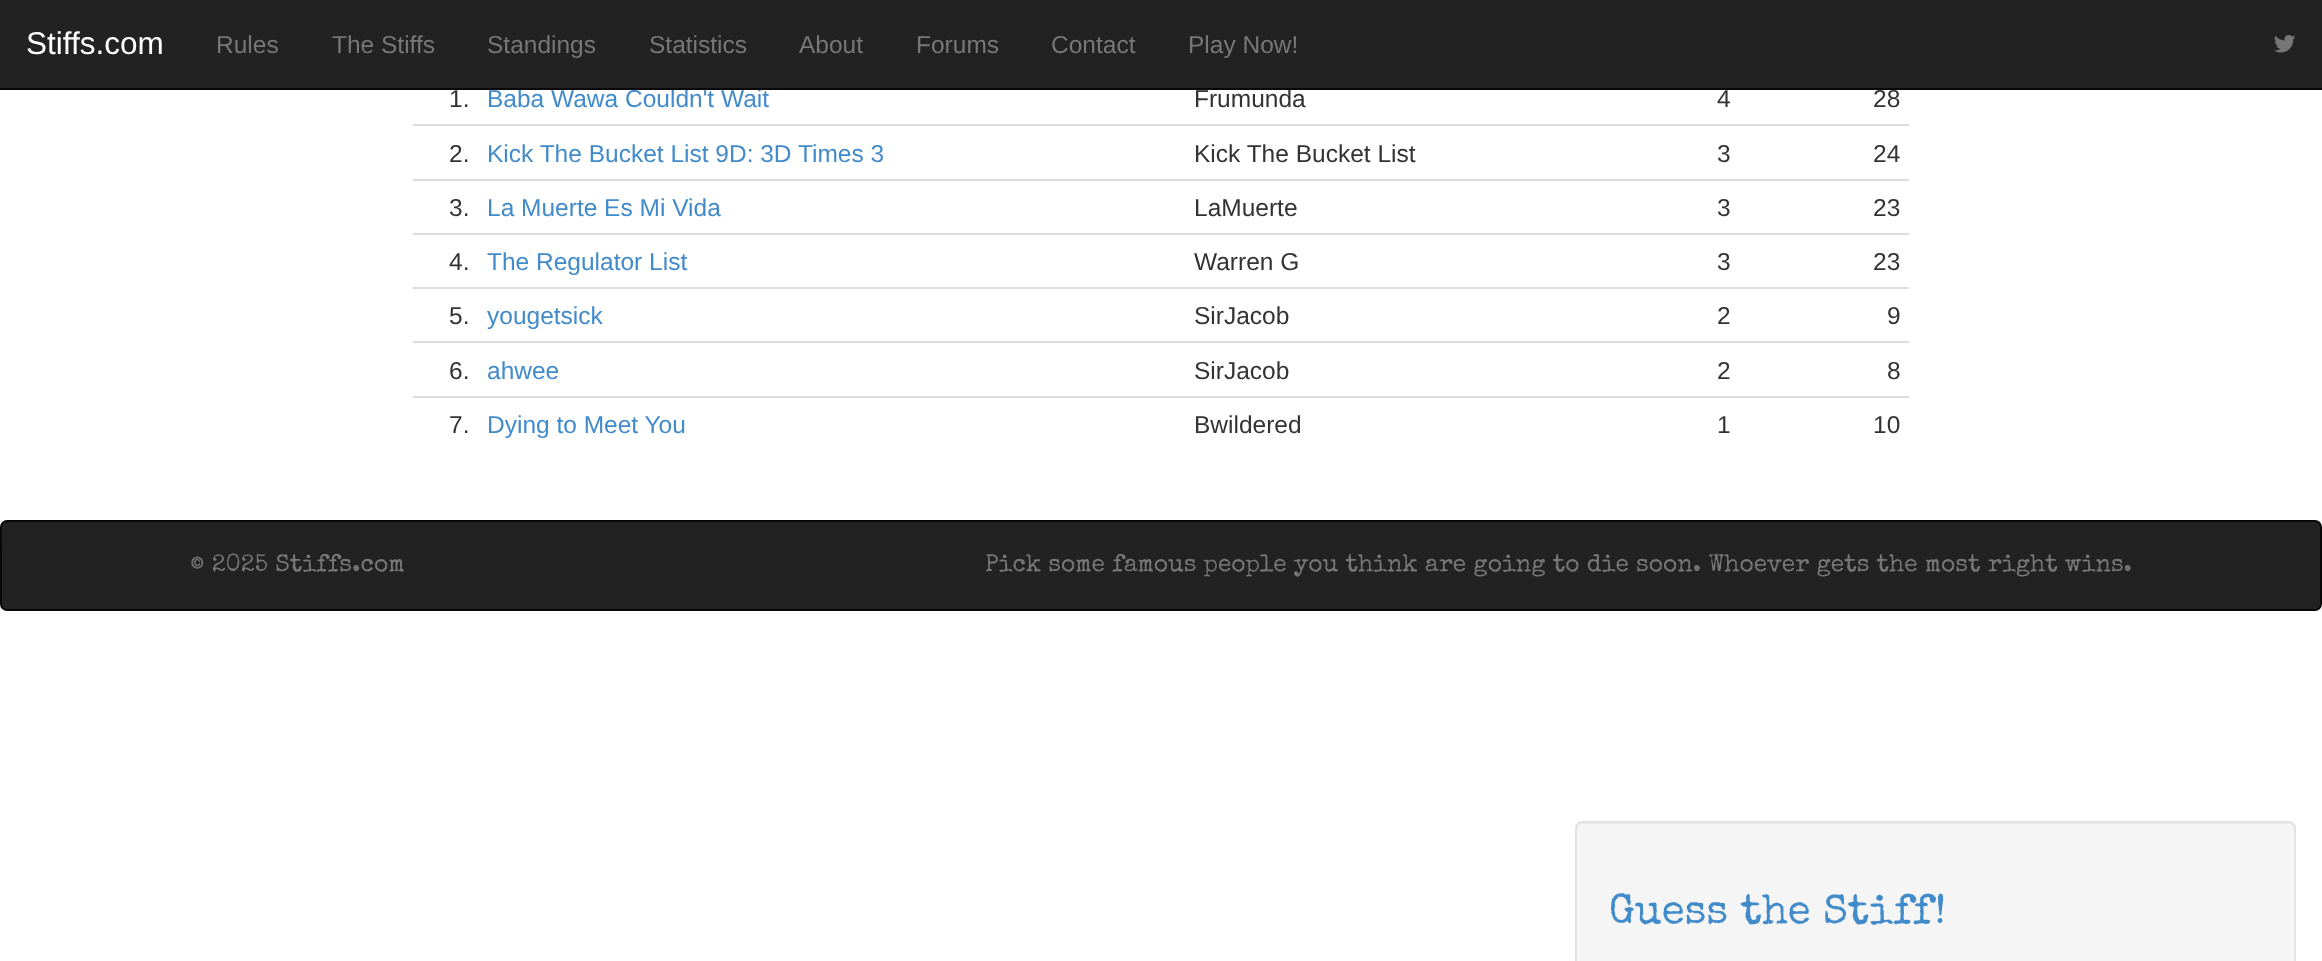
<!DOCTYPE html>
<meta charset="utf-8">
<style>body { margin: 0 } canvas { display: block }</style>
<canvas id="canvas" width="2322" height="961"></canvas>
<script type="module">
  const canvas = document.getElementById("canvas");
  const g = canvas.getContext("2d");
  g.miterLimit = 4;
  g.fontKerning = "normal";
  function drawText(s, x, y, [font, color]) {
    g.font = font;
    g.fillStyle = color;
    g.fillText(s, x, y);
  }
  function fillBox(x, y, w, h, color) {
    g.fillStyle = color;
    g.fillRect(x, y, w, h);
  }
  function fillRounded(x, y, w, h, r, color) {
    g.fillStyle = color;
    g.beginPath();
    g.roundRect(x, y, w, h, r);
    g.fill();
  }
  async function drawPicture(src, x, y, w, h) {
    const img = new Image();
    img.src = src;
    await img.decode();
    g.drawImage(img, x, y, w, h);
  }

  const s1 = ["24.5px Liberation Sans", "#428BCA"];
  const s2 = ["24.5px Liberation Sans", "#333333"];
  const s3 = ["31.5px Liberation Sans", "#FFFFFF"];
  const s4 = ["24.5px Liberation Sans", "#777777"];
  const s5 = ["24.5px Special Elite", "#777777"];
  const s6 = ["42px Special Elite", "#428BCA"];

  fillBox(0, 0, 2322, 961, "#FFFFFF");
  fillBox(0, 0, 2322, 88, "#222222");
  drawText("Baba Wawa Couldn't Wait", 487, 107, s1);
  drawText("Frumunda", 1194, 107, s2);
  drawText("28", 1873, 107, s2);
  fillBox(0, 88, 2322, 2, "#080808");
  drawText("Stiffs.com", 26, 54, s3);
  drawText("Rules", 216, 53, s4);
  drawText("The Stiffs", 332, 53, s4);
  drawText("Standings", 487, 53, s4);
  drawText("Statistics", 649, 53, s4);
  drawText("About", 799, 53, s4);
  drawText("Forums", 916, 53, s4);
  drawText("Contact", 1051, 53, s4);
  drawText("Play Now!", 1188, 53, s4);
  await drawPicture("pic1.png", 2274, 35, 22, 18);
  drawText("1.", 449, 107, s2);
  drawText("4", 1717, 107, s2);
  drawText("2.", 449, 162, s2);
  drawText("Kick The Bucket List 9D: 3D Times 3", 487, 162, s1);
  drawText("Kick The Bucket List", 1194, 162, s2);
  drawText("3", 1717, 162, s2);
  fillBox(413, 124, 1496, 2, "#DDDDDD");
  drawText("24", 1873, 162, s2);
  drawText("3.", 449, 216, s2);
  drawText("La Muerte Es Mi Vida", 487, 216, s1);
  drawText("LaMuerte", 1194, 216, s2);
  drawText("3", 1717, 216, s2);
  fillBox(413, 179, 1496, 2, "#DDDDDD");
  drawText("23", 1873, 216, s2);
  drawText("4.", 449, 270, s2);
  drawText("The Regulator List", 487, 270, s1);
  drawText("Warren G", 1194, 270, s2);
  drawText("3", 1717, 270, s2);
  fillBox(413, 233, 1496, 2, "#DDDDDD");
  drawText("23", 1873, 270, s2);
  drawText("5.", 449, 324, s2);
  drawText("yougetsick", 487, 324, s1);
  drawText("SirJacob", 1194, 324, s2);
  drawText("2", 1717, 324, s2);
  fillBox(413, 287, 1496, 2, "#DDDDDD");
  drawText("9", 1887, 324, s2);
  drawText("6.", 449, 379, s2);
  drawText("ahwee", 487, 379, s1);
  drawText("SirJacob", 1194, 379, s2);
  drawText("2", 1717, 379, s2);
  fillBox(413, 341, 1496, 2, "#DDDDDD");
  drawText("8", 1887, 379, s2);
  drawText("7.", 449, 433, s2);
  drawText("Dying to Meet You", 487, 433, s1);
  drawText("Bwildered", 1194, 433, s2);
  drawText("1", 1717, 433, s2);
  fillBox(413, 396, 1496, 2, "#DDDDDD");
  drawText("10", 1873, 433, s2);
  g.fillStyle = "#222222";
  g.beginPath();
  g.roundRect(1, 521, 2320, 89, 6);
  g.fill();
  g.strokeStyle = "#080808";
  g.lineWidth = 2;
  g.stroke();
  drawText("© 2025 Stiffs.com", 190, 571, s5);
  drawText("Pick some famous people you think are going to die soon. Whoever gets the most right wins.", 985, 571, s5);
  fillRounded(1575, 821, 721, 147, 7, "#F5F5F5");
  g.fillStyle = "#E9E9E9";
  g.beginPath();
  g.moveTo(1582, 824);
  g.lineTo(2289, 824);
  g.bezierCurveTo(2292, 824, 2294, 827, 2294, 830);
  g.lineTo(2294, 828);
  g.bezierCurveTo(2294, 825, 2292, 823, 2289, 823);
  g.lineTo(1582, 823);
  g.bezierCurveTo(1579, 823, 1577, 825, 1577, 828);
  g.lineTo(1577, 830);
  g.bezierCurveTo(1577, 827, 1579, 824, 1582, 824);
  g.closePath();
  g.fill();
  g.beginPath();
  g.roundRect(1576, 822, 719, 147, 6);
  g.strokeStyle = "#E3E3E3";
  g.stroke();
  drawText("Guess the Stiff!", 1609, 923, s6);
</script>
